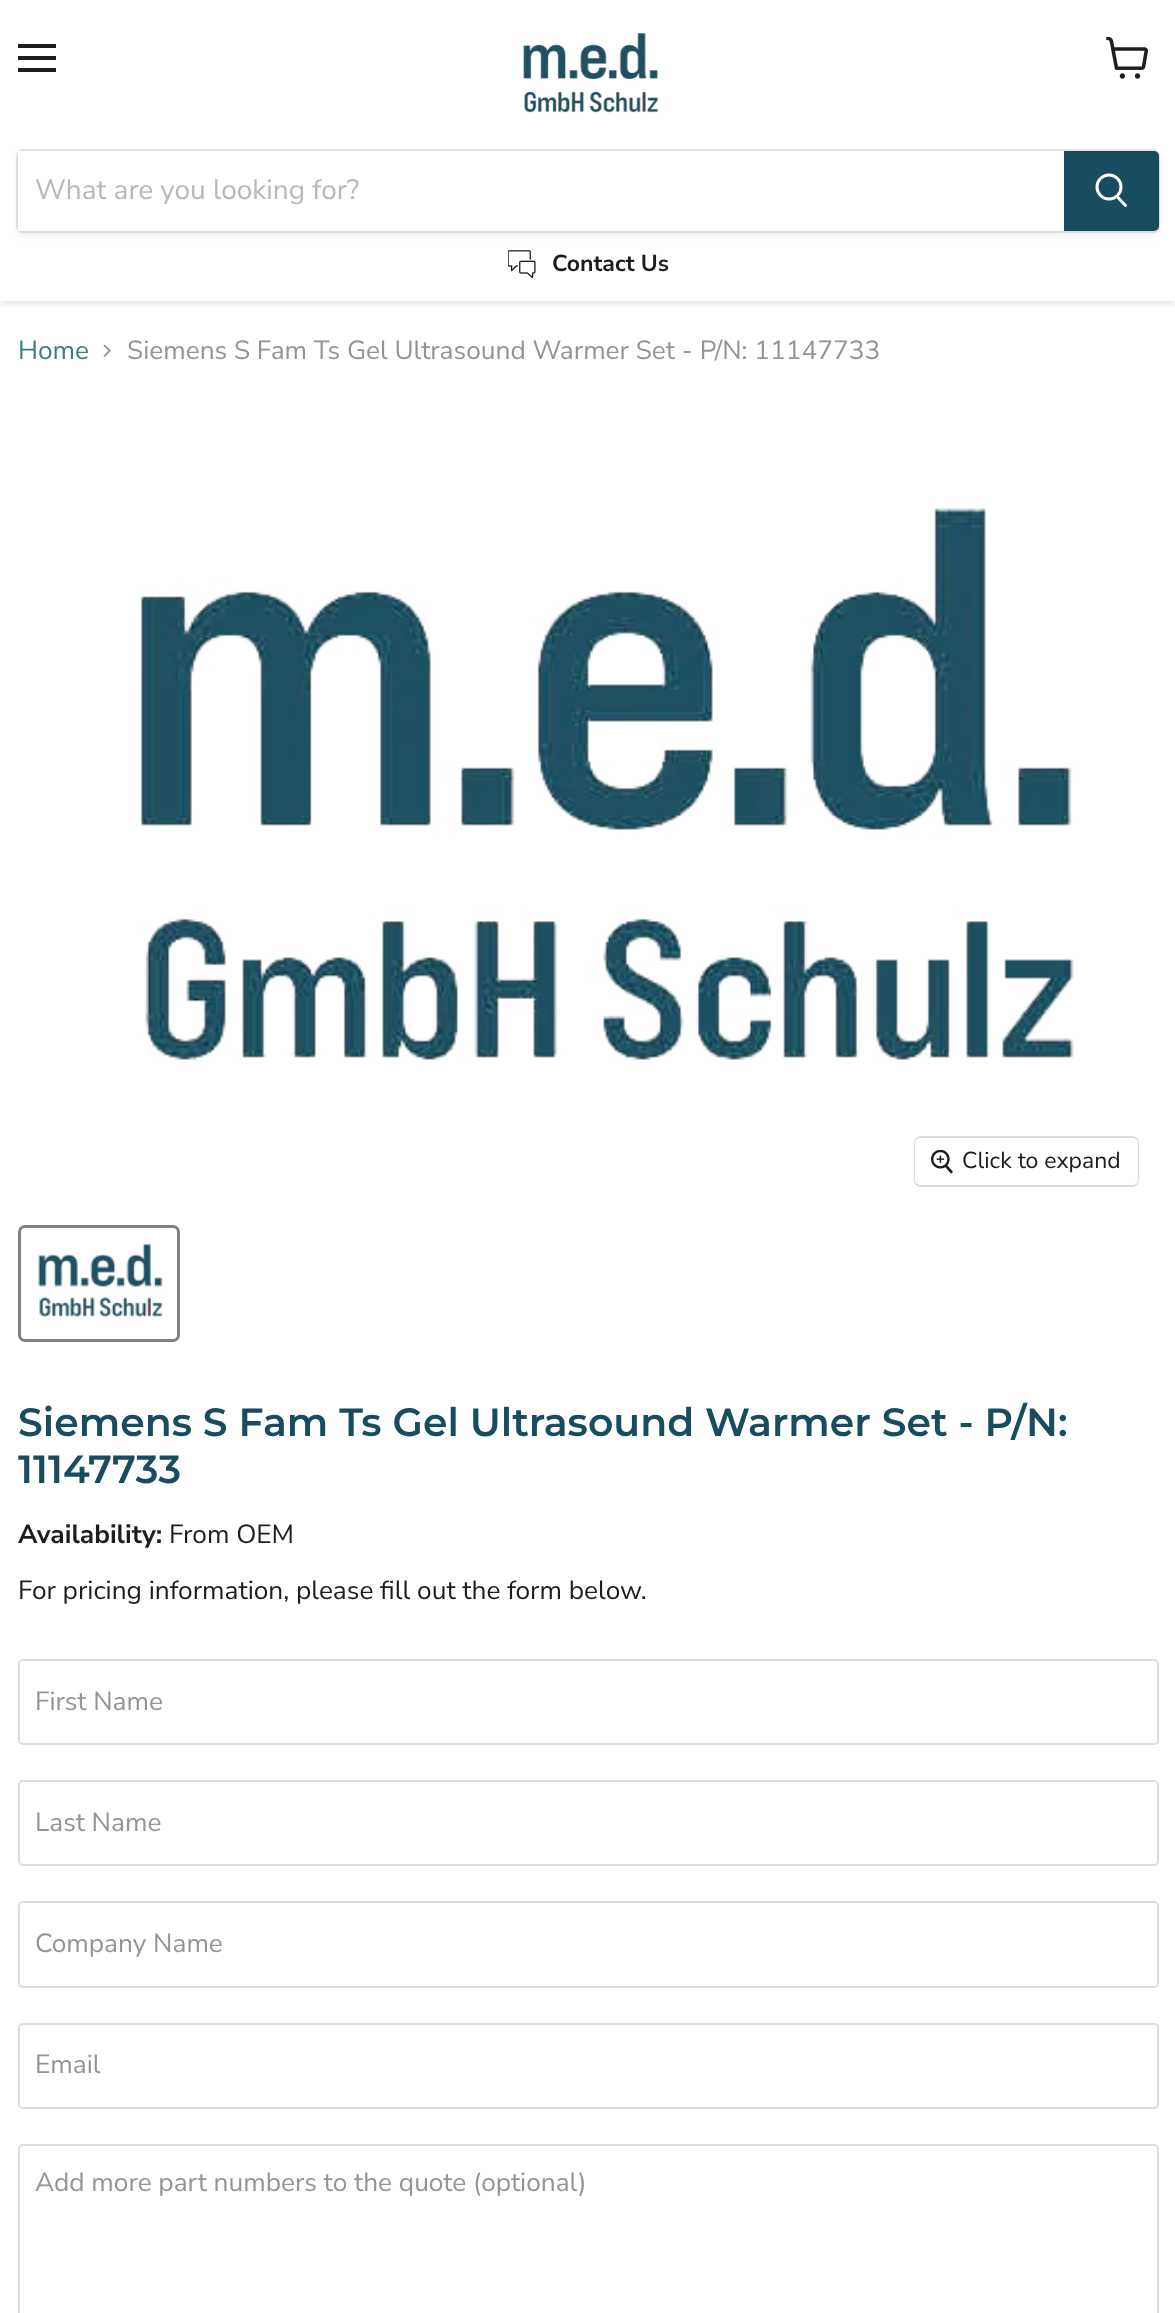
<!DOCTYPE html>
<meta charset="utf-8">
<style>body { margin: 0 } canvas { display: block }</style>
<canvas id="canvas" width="1175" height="2313"></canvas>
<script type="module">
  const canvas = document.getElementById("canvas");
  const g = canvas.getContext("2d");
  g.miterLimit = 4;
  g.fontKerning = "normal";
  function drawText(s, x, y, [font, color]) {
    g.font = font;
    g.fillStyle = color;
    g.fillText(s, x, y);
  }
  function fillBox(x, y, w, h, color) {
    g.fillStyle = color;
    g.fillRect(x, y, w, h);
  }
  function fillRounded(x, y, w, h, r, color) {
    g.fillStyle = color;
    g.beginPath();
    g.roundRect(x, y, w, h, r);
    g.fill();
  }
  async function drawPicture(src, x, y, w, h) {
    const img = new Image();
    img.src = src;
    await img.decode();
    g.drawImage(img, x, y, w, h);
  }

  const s1 = ["200 28px Nunito Sans", "#B8B8B8"];
  const s2 = ["bold 23px Nunito Sans", "#1D1D1D"];
  const s3 = ["200 26.25px Nunito Sans", "#3C7D7C"];
  const s4 = ["200 26.25px Nunito Sans", "#949494"];
  const s5 = ["200 23px Nunito Sans", "#1D1D1D"];
  const s6 = ["600 39.4px Montserrat", "#184C5F"];
  const s7 = ["bold 26.25px Nunito Sans", "#1D1D1D"];
  const s8 = ["200 26.25px Nunito Sans", "#1D1D1D"];

  fillBox(0, 0, 1175, 2313, "#FFFFFF");
  g.save();
  g.beginPath();
  g.rect(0, 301, 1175, 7);
  g.clip();
  g.fillStyle = "rgba(128, 128, 128, 0.25)";
  g.filter = "blur(3.5px)";
  g.beginPath();
  g.rect(0, 2, 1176, 301);
  g.fill();
  g.filter = "none";
  g.restore();
  fillBox(18, 44, 38, 4, "#1D1D1D");
  fillBox(18, 56, 38, 4, "#1D1D1D");
  fillBox(18, 68, 38, 4, "#1D1D1D");
  await drawPicture("pic1.png", 1106, 37, 42, 42);
  await drawPicture("pic2.png", 523, 33, 136, 80);
  g.fillStyle = "rgba(128, 128, 128, 0.11)";
  g.filter = "blur(2.5px)";
  g.beginPath();
  g.roundRect(16, 152, 1144, 84, 7);
  g.fill();
  g.filter = "none";
  g.beginPath();
  g.roundRect(17, 150, 1142, 82, 6);
  g.strokeStyle = "rgba(128, 128, 128, 0.2)";
  g.lineWidth = 2;
  g.stroke();
  fillBox(18, 151, 1046, 80, "#FFFFFF");
  drawText("What are you looking for?", 35, 199, s1);
  g.fillStyle = "#184C5F";
  g.beginPath();
  g.roundRect(1065, 152, 93, 78, [0, 4, 4, 0]);
  g.fill();
  g.strokeStyle = "#184C5F";
  g.stroke();
  g.beginPath();
  g.moveTo(1125.5, 205.5);
  g.lineTo(1117.5, 197);
  g.strokeStyle = "#FFFFFF";
  g.lineWidth = 3;
  g.lineCap = "round";
  g.stroke();
  g.beginPath();
  g.arc(1109, 187, 12, 0, Math.PI * 2);
  g.stroke();
  await drawPicture("pic3.png", 508, 250, 28, 28);
  drawText("Contact Us", 552, 271, s2);
  drawText("Home", 18, 359, s3);
  await drawPicture("pic4.png", 103, 344, 8, 14);
  drawText("Siemens S Fam Ts Gel Ultrasound Warmer Set - P/N: 11147733", 127, 359, s4);
  await drawPicture("pic5.png", 141, 508, 933, 552);
  g.beginPath();
  g.roundRect(915, 1137, 223, 49, 6);
  g.strokeStyle = "#D9D9D9";
  g.lineWidth = 2;
  g.stroke();
  fillRounded(915, 1138, 223, 47, 5, "rgba(255, 255, 255, 0.9)");
  await drawPicture("pic6.png", 931, 1150, 22, 24);
  drawText("Click to expand", 962, 1168, s5);
  g.beginPath();
  g.roundRect(19.5, 1226.5, 159, 114, 5.5);
  g.strokeStyle = "#818181";
  g.lineWidth = 3;
  g.stroke();
  await drawPicture("pic7.png", 38, 1244, 125, 74);
  drawText("Siemens S Fam Ts Gel Ultrasound Warmer Set - P/N:", 18, 1436, s6);
  drawText("11147733", 18, 1483, s6);
  drawText("Availability:", 18, 1543, s7);
  drawText("From OEM", 169, 1543, s8);
  drawText("For pricing information, please fill out the form below.", 18, 1599, s8);
  g.beginPath();
  g.roundRect(19, 1660, 1139, 84, 4);
  g.strokeStyle = "#DDDDDD";
  g.lineWidth = 2;
  g.stroke();
  drawText("First Name", 35, 1710, s4);
  g.beginPath();
  g.roundRect(19, 1781, 1139, 84, 4);
  g.stroke();
  drawText("Last Name", 35, 1831, s4);
  g.beginPath();
  g.roundRect(19, 1902, 1139, 85, 4);
  g.stroke();
  drawText("Company Name", 35, 1952, s4);
  g.beginPath();
  g.roundRect(19, 2024, 1139, 84, 4);
  g.stroke();
  drawText("Email", 35, 2073, s4);
  g.beginPath();
  g.roundRect(19, 2145, 1139, 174, 4);
  g.stroke();
  drawText("Add more part numbers to the quote (optional)", 35, 2191, s4);
</script>
